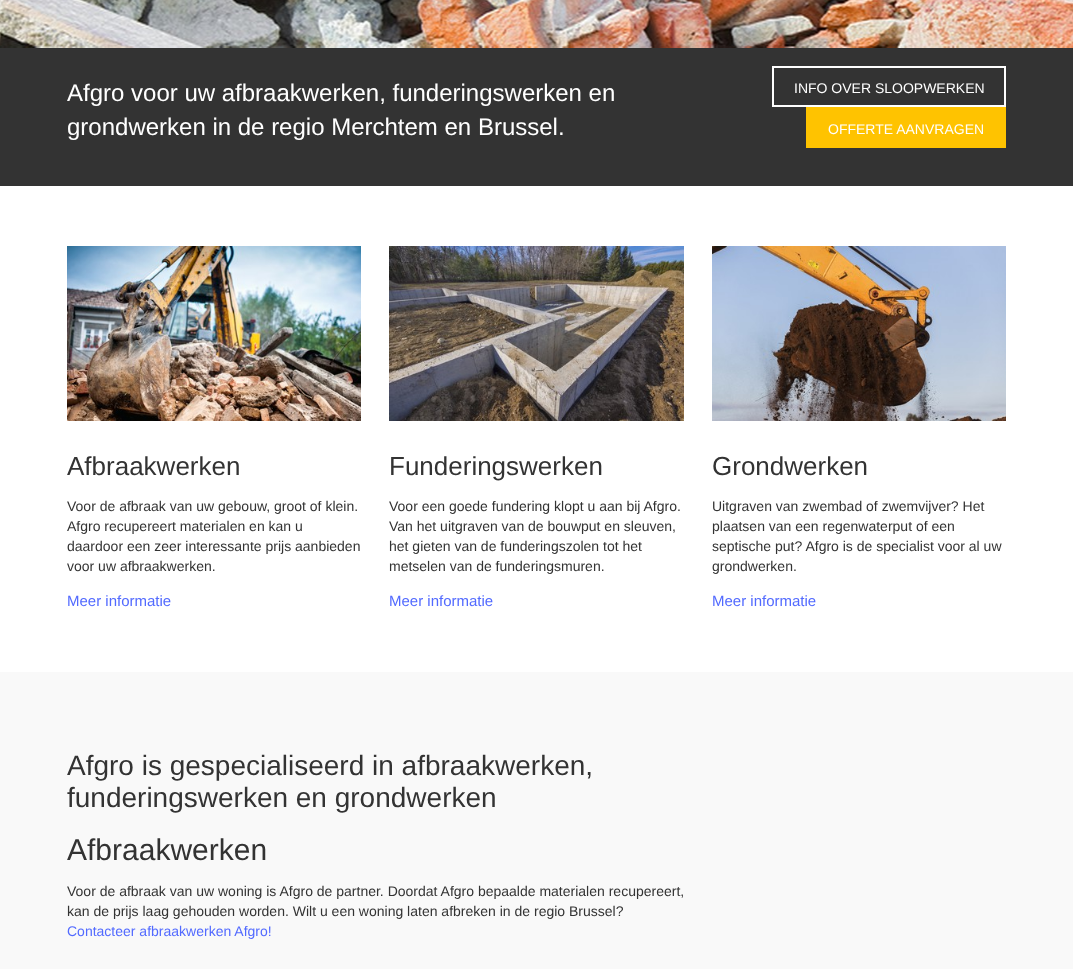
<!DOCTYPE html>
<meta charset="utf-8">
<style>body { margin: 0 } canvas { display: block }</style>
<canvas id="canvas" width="1073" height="969"></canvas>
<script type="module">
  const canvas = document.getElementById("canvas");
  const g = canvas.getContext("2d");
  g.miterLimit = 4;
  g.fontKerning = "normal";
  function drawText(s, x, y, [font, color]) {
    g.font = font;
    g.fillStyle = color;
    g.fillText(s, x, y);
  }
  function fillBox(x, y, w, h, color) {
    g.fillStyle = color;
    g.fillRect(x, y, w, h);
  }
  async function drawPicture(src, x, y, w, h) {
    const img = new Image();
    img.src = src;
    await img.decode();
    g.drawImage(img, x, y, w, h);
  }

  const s1 = ["24px Liberation Sans", "#FFFFFF"];
  const s2 = ["14px Liberation Sans", "#FFFFFF"];
  const s3 = ["26px Liberation Sans", "#333333"];
  const s4 = ["14px Liberation Sans", "#333333"];
  const s5 = ["15px Liberation Sans", "#526AFF"];
  const s6 = ["28px Liberation Sans", "#333333"];
  const s7 = ["30px Liberation Sans", "#333333"];
  const s8 = ["14px Liberation Sans", "#526AFF"];

  fillBox(0, 0, 1073, 969, "#FFFFFF");
  await drawPicture("pic1.png", 0, 0, 1073, 48);
  fillBox(0, 48, 1073, 138, "#333333");
  drawText("Afgro voor uw afbraakwerken, funderingswerken en", 67, 101, s1);
  drawText("grondwerken in de regio Merchtem en Brussel.", 67, 135, s1);
  g.strokeStyle = "#FFFFFF";
  g.lineWidth = 2;
  g.strokeRect(773, 67, 232, 39);
  drawText("INFO OVER SLOOPWERKEN", 794, 93, s2);
  fillBox(806, 107, 200, 41, "#FFC300");
  drawText("OFFERTE AANVRAGEN", 828, 134, s2);
  await drawPicture("pic2.png", 67, 246, 294, 175);
  drawText("Afbraakwerken", 67, 475, s3);
  drawText("Voor de afbraak van uw gebouw, groot of klein.", 67, 511, s4);
  drawText("Afgro recupereert materialen en kan u", 67, 531, s4);
  drawText("daardoor een zeer interessante prijs aanbieden", 67, 551, s4);
  drawText("voor uw afbraakwerken.", 67, 571, s4);
  drawText("Meer informatie", 67, 606, s5);
  await drawPicture("pic3.png", 389, 246, 295, 175);
  drawText("Funderingswerken", 389, 475, s3);
  drawText("Voor een goede fundering klopt u aan bij Afgro.", 389, 511, s4);
  drawText("Van het uitgraven van de bouwput en sleuven,", 389, 531, s4);
  drawText("het gieten van de funderingszolen tot het", 389, 551, s4);
  drawText("metselen van de funderingsmuren.", 389, 571, s4);
  drawText("Meer informatie", 389, 606, s5);
  await drawPicture("pic4.png", 712, 246, 294, 175);
  drawText("Grondwerken", 712, 475, s3);
  drawText("Uitgraven van zwembad of zwemvijver? Het", 712, 511, s4);
  drawText("plaatsen van een regenwaterput of een", 712, 531, s4);
  drawText("septische put? Afgro is de specialist voor al uw", 712, 551, s4);
  drawText("grondwerken.", 712, 571, s4);
  drawText("Meer informatie", 712, 606, s5);
  fillBox(0, 672, 1073, 297, "#F9F9F9");
  drawText("Afgro is gespecialiseerd in afbraakwerken,", 67, 775, s6);
  drawText("funderingswerken en grondwerken", 67, 807, s6);
  drawText("Afbraakwerken", 67, 860, s7);
  drawText("Voor de afbraak van uw woning is Afgro de partner. Doordat Afgro bepaalde materialen recupereert,", 67, 896, s4);
  drawText("kan de prijs laag gehouden worden. Wilt u een woning laten afbreken in de regio Brussel?", 67, 916, s4);
  drawText("Contacteer afbraakwerken Afgro!", 67, 936, s8);
</script>
